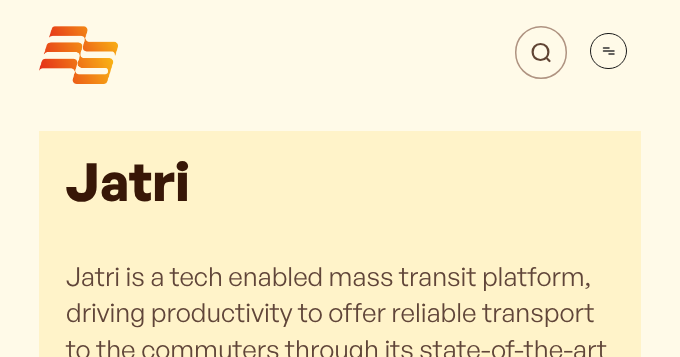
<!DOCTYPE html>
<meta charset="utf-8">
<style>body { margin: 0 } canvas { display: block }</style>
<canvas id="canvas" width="680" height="357"></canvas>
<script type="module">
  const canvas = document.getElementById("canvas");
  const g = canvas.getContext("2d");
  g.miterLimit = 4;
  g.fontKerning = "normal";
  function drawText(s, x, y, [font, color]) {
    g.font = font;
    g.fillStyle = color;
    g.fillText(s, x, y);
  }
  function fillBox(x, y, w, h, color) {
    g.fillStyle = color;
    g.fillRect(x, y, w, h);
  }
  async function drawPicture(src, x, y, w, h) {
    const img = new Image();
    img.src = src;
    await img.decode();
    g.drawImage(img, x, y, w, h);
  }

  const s1 = ["bold 52.5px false", "#381707"];
  const s2 = ["26.25px false", "#604539"];

  fillBox(0, 0, 680, 357, "#FFFAE8");
  await drawPicture("pic1.png", 39, 26, 79, 58);
  g.beginPath();
  g.roundRect(515.75, 26.75, 50.5, 51.5, 25.25);
  g.strokeStyle = "#AF9381";
  g.lineWidth = 1.5;
  g.stroke();
  g.beginPath();
  g.moveTo(540.5, 60);
  g.bezierCurveTo(551, 60, 551, 44, 540.5, 44);
  g.bezierCurveTo(530, 44, 530, 60, 540.5, 60);
  g.closePath();
  g.strokeStyle = "#604434";
  g.lineWidth = 2.2;
  g.lineCap = "round";
  g.lineJoin = "round";
  g.stroke();
  g.beginPath();
  g.moveTo(549.5, 61);
  g.lineTo(547.5, 59);
  g.strokeStyle = "rgba(56, 23, 7, 0.8)";
  g.stroke();
  g.beginPath();
  g.roundRect(590.5, 33.5, 36, 35, 17.5);
  g.strokeStyle = "#1B1B1B";
  g.lineWidth = 1;
  g.lineJoin = "miter";
  g.stroke();
  g.beginPath();
  g.moveTo(603.5, 48);
  g.lineTo(609, 48);
  g.moveTo(603.5, 51);
  g.lineTo(614, 51);
  g.moveTo(609, 54);
  g.lineTo(614, 54);
  g.strokeStyle = "#323130";
  g.lineWidth = 1.5;
  g.stroke();
  fillBox(39, 131, 602, 226, "#FFF3C9");
  drawText("Jatri", 66, 201, s1);
  drawText("Jatri is a tech enabled mass transit platform,", 66, 286, s2);
  drawText("driving productivity to offer reliable transport", 66, 322, s2);
  drawText("to the commuters through its state-of-the-art", 66, 359, s2);
</script>
